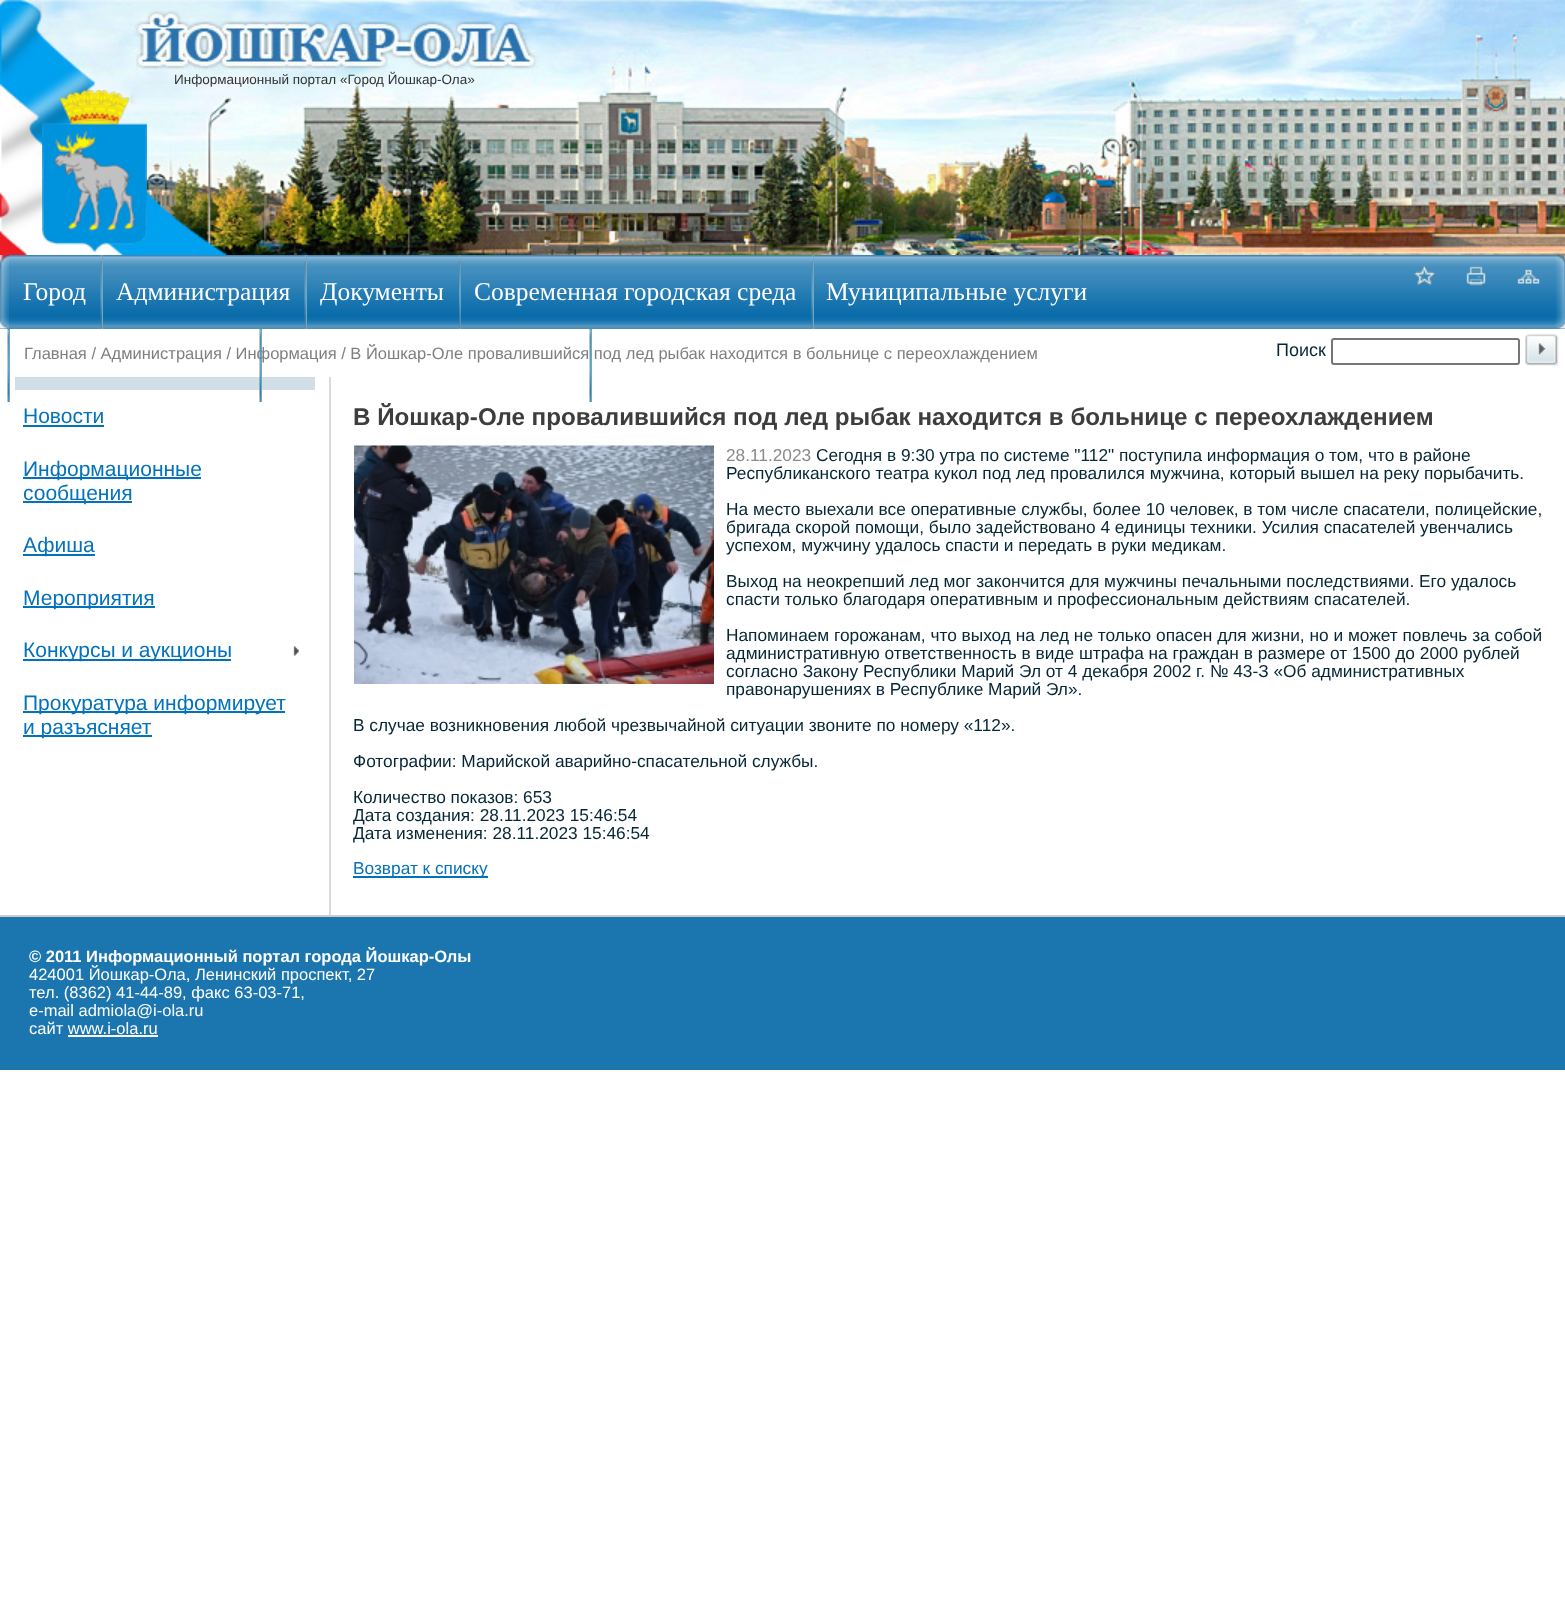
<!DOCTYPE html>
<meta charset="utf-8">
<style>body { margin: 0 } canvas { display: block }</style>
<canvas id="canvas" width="1565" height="1624"></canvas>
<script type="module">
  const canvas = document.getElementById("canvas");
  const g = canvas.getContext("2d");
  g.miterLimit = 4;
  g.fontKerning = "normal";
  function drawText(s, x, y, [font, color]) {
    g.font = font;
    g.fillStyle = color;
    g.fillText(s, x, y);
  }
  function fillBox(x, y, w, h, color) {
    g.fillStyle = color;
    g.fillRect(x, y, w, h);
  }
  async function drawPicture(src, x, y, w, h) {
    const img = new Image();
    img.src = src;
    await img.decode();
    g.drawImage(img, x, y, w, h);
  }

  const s1 = ["13.5px Liberation Sans", "#333333"];
  const s2 = ["25.5px Liberation Serif", "#FFFFFF"];
  const s3 = ["16.5px Liberation Sans", "#7F7F7F"];
  const s4 = ["18px Liberation Sans", "#052635"];
  const s5 = ["21px Liberation Sans", "#0372BC"];
  const s6 = ["bold 24.2px Liberation Sans", "#3D3D3D"];
  const s7 = ["17.3px Liberation Sans", "#8A8A8A"];
  const s8 = ["17.3px Liberation Sans", "#052635"];
  const s9 = ["17.3px Liberation Sans", "#0372BC"];
  const s10 = ["bold 16.5px Liberation Sans", "#FFFFFF"];
  const s11 = ["16.5px Liberation Sans", "#FFFFFF"];

  fillBox(0, 0, 1565, 1624, "#FFFFFF");
  await drawPicture("pic1.png", 0, 0, 1565, 255);
  await drawPicture("pic2.png", 42, 90, 105, 162);
  drawText("Информационный портал «Город Йошкар-Ола»", 174, 84, s1);
  fillBox(0, 328, 1565, 1, "#4B8BA9");
  await drawPicture("pic3.png", 0, 255, 1565, 74);
  await drawPicture("pic4.png", 0, 255, 9, 74);
  drawText("Город", 23, 300, s2);
  fillBox(101, 255, 2, 74, "#71A7C0");
  await drawPicture("pic5.png", 100, 255, 2, 74);
  drawText("Администрация", 116, 300, s2);
  fillBox(305, 255, 2, 74, "#71A7C0");
  await drawPicture("pic5.png", 304, 255, 2, 74);
  drawText("Документы", 320, 300, s2);
  fillBox(459, 255, 2, 74, "#71A7C0");
  await drawPicture("pic6.png", 459, 255, 2, 74);
  drawText("Современная городская среда", 474, 300, s2);
  fillBox(812, 255, 2, 74, "#71A7C0");
  await drawPicture("pic5.png", 811, 255, 2, 74);
  drawText("Муниципальные услуги", 826, 300, s2);
  fillBox(9, 329, 1, 73, "#71A7C0");
  await drawPicture("pic7.png", 7, 329, 2, 73);
  fillBox(15, 377, 300, 13, "#D1DEE5");
  fillBox(261, 329, 1, 73, "#71A7C0");
  await drawPicture("pic8.png", 259, 328, 2, 74);
  fillBox(591, 329, 1, 73, "#71A7C0");
  await drawPicture("pic9.png", 589, 328, 2, 74);
  await drawPicture("pic10.png", 1555, 255, 10, 74);
  await drawPicture("pic11.png", 1414, 265, 22, 21);
  await drawPicture("pic12.png", 1466, 266, 20, 20);
  await drawPicture("pic13.png", 1517, 269, 23, 15);
  drawText("Главная / Администрация / Информация / В Йошкар-Оле провалившийся под лед рыбак находится в больнице с переохлаждением", 24, 359, s3);
  drawText("Поиск", 1276, 356, s4);
  g.beginPath();
  g.roundRect(1332, 339, 187, 25, 2);
  g.strokeStyle = "#767676";
  g.lineWidth = 2;
  g.stroke();
  await drawPicture("pic14.png", 1525, 334, 34, 32);
  fillBox(329, 377, 2, 541, "#DBDBDB");
  drawText("Новости", 23, 423, s5);
  fillBox(23, 425, 81, 2, "#0372BC");
  fillBox(23, 477, 178, 2, "#0372BC");
  drawText("Информационные", 23, 476, s5);
  fillBox(23, 501, 109, 2, "#0372BC");
  drawText("сообщения", 23, 500, s5);
  fillBox(23, 554, 72, 2, "#0372BC");
  drawText("Афиша", 23, 552, s5);
  fillBox(23, 606, 132, 2, "#0372BC");
  drawText("Мероприятия", 23, 605, s5);
  await drawPicture("pic15.png", 293, 646, 6, 10);
  fillBox(23, 659, 208, 2, "#0372BC");
  drawText("Конкурсы и аукционы", 23, 657, s5);
  fillBox(23, 711, 262, 2, "#0372BC");
  drawText("Прокуратура информирует", 23, 710, s5);
  fillBox(23, 735, 129, 2, "#0372BC");
  drawText("и разъясняет", 23, 734, s5);
  drawText("В Йошкар-Оле провалившийся под лед рыбак находится в больнице с переохлаждением", 353, 425, s6);
  await drawPicture("pic16.png", 354, 445, 360, 239);
  drawText("28.11.2023", 726, 461, s7);
  drawText("Сегодня в 9:30 утра по системе \"112\" поступила информация о том, что в районе", 816, 461, s8);
  drawText("Республиканского театра кукол под лед провалился мужчина, который вышел на реку порыбачить.", 726, 479, s8);
  drawText("На место выехали все оперативные службы, более 10 человек, в том числе спасатели, полицейские,", 726, 515, s8);
  drawText("бригада скорой помощи, было задействовано 4 единицы техники. Усилия спасателей увенчались", 726, 533, s8);
  drawText("успехом, мужчину удалось спасти и передать в руки медикам.", 726, 551, s8);
  drawText("Выход на неокрепший лед мог закончится для мужчины печальными последствиями. Его удалось", 726, 587, s8);
  drawText("спасти только благодаря оперативным и профессиональным действиям спасателей.", 726, 605, s8);
  drawText("Напоминаем горожанам, что выход на лед не только опасен для жизни, но и может повлечь за собой", 726, 641, s8);
  drawText("административную ответственность в виде штрафа на граждан в размере от 1500 до 2000 рублей", 726, 659, s8);
  drawText("согласно Закону Республики Марий Эл от 4 декабря 2002 г. № 43-З «Об административных", 726, 677, s8);
  drawText("правонарушениях в Республике Марий Эл».", 726, 695, s8);
  drawText("В случае возникновения любой чрезвычайной ситуации звоните по номеру «112».", 353, 731, s8);
  drawText("Фотографии: Марийской аварийно-спасательной службы.", 353, 767, s8);
  drawText("Количество показов: 653", 353, 803, s8);
  drawText("Дата создания: 28.11.2023 15:46:54", 353, 821, s8);
  drawText("Дата изменения: 28.11.2023 15:46:54", 353, 839, s8);
  fillBox(353, 876, 135, 2, "#0372BC");
  drawText("Возврат к списку", 353, 874, s9);
  fillBox(0, 917, 1565, 153, "#1B76B0");
  fillBox(0, 915, 1565, 2, "#CCCCCC");
  drawText("© 2011 Информационный портал города Йошкар-Олы", 29, 962, s10);
  drawText("424001 Йошкар-Ола, Ленинский проспект, 27", 29, 980, s11);
  drawText("тел. (8362) 41-44-89, факс 63-03-71,", 29, 998, s11);
  drawText("e-mail admiola@i-ola.ru", 29, 1016, s11);
  drawText("сайт www.i-ola.ru", 29, 1034, s11);
  fillBox(68, 1035, 90, 2, "#FFFFFF");
</script>
